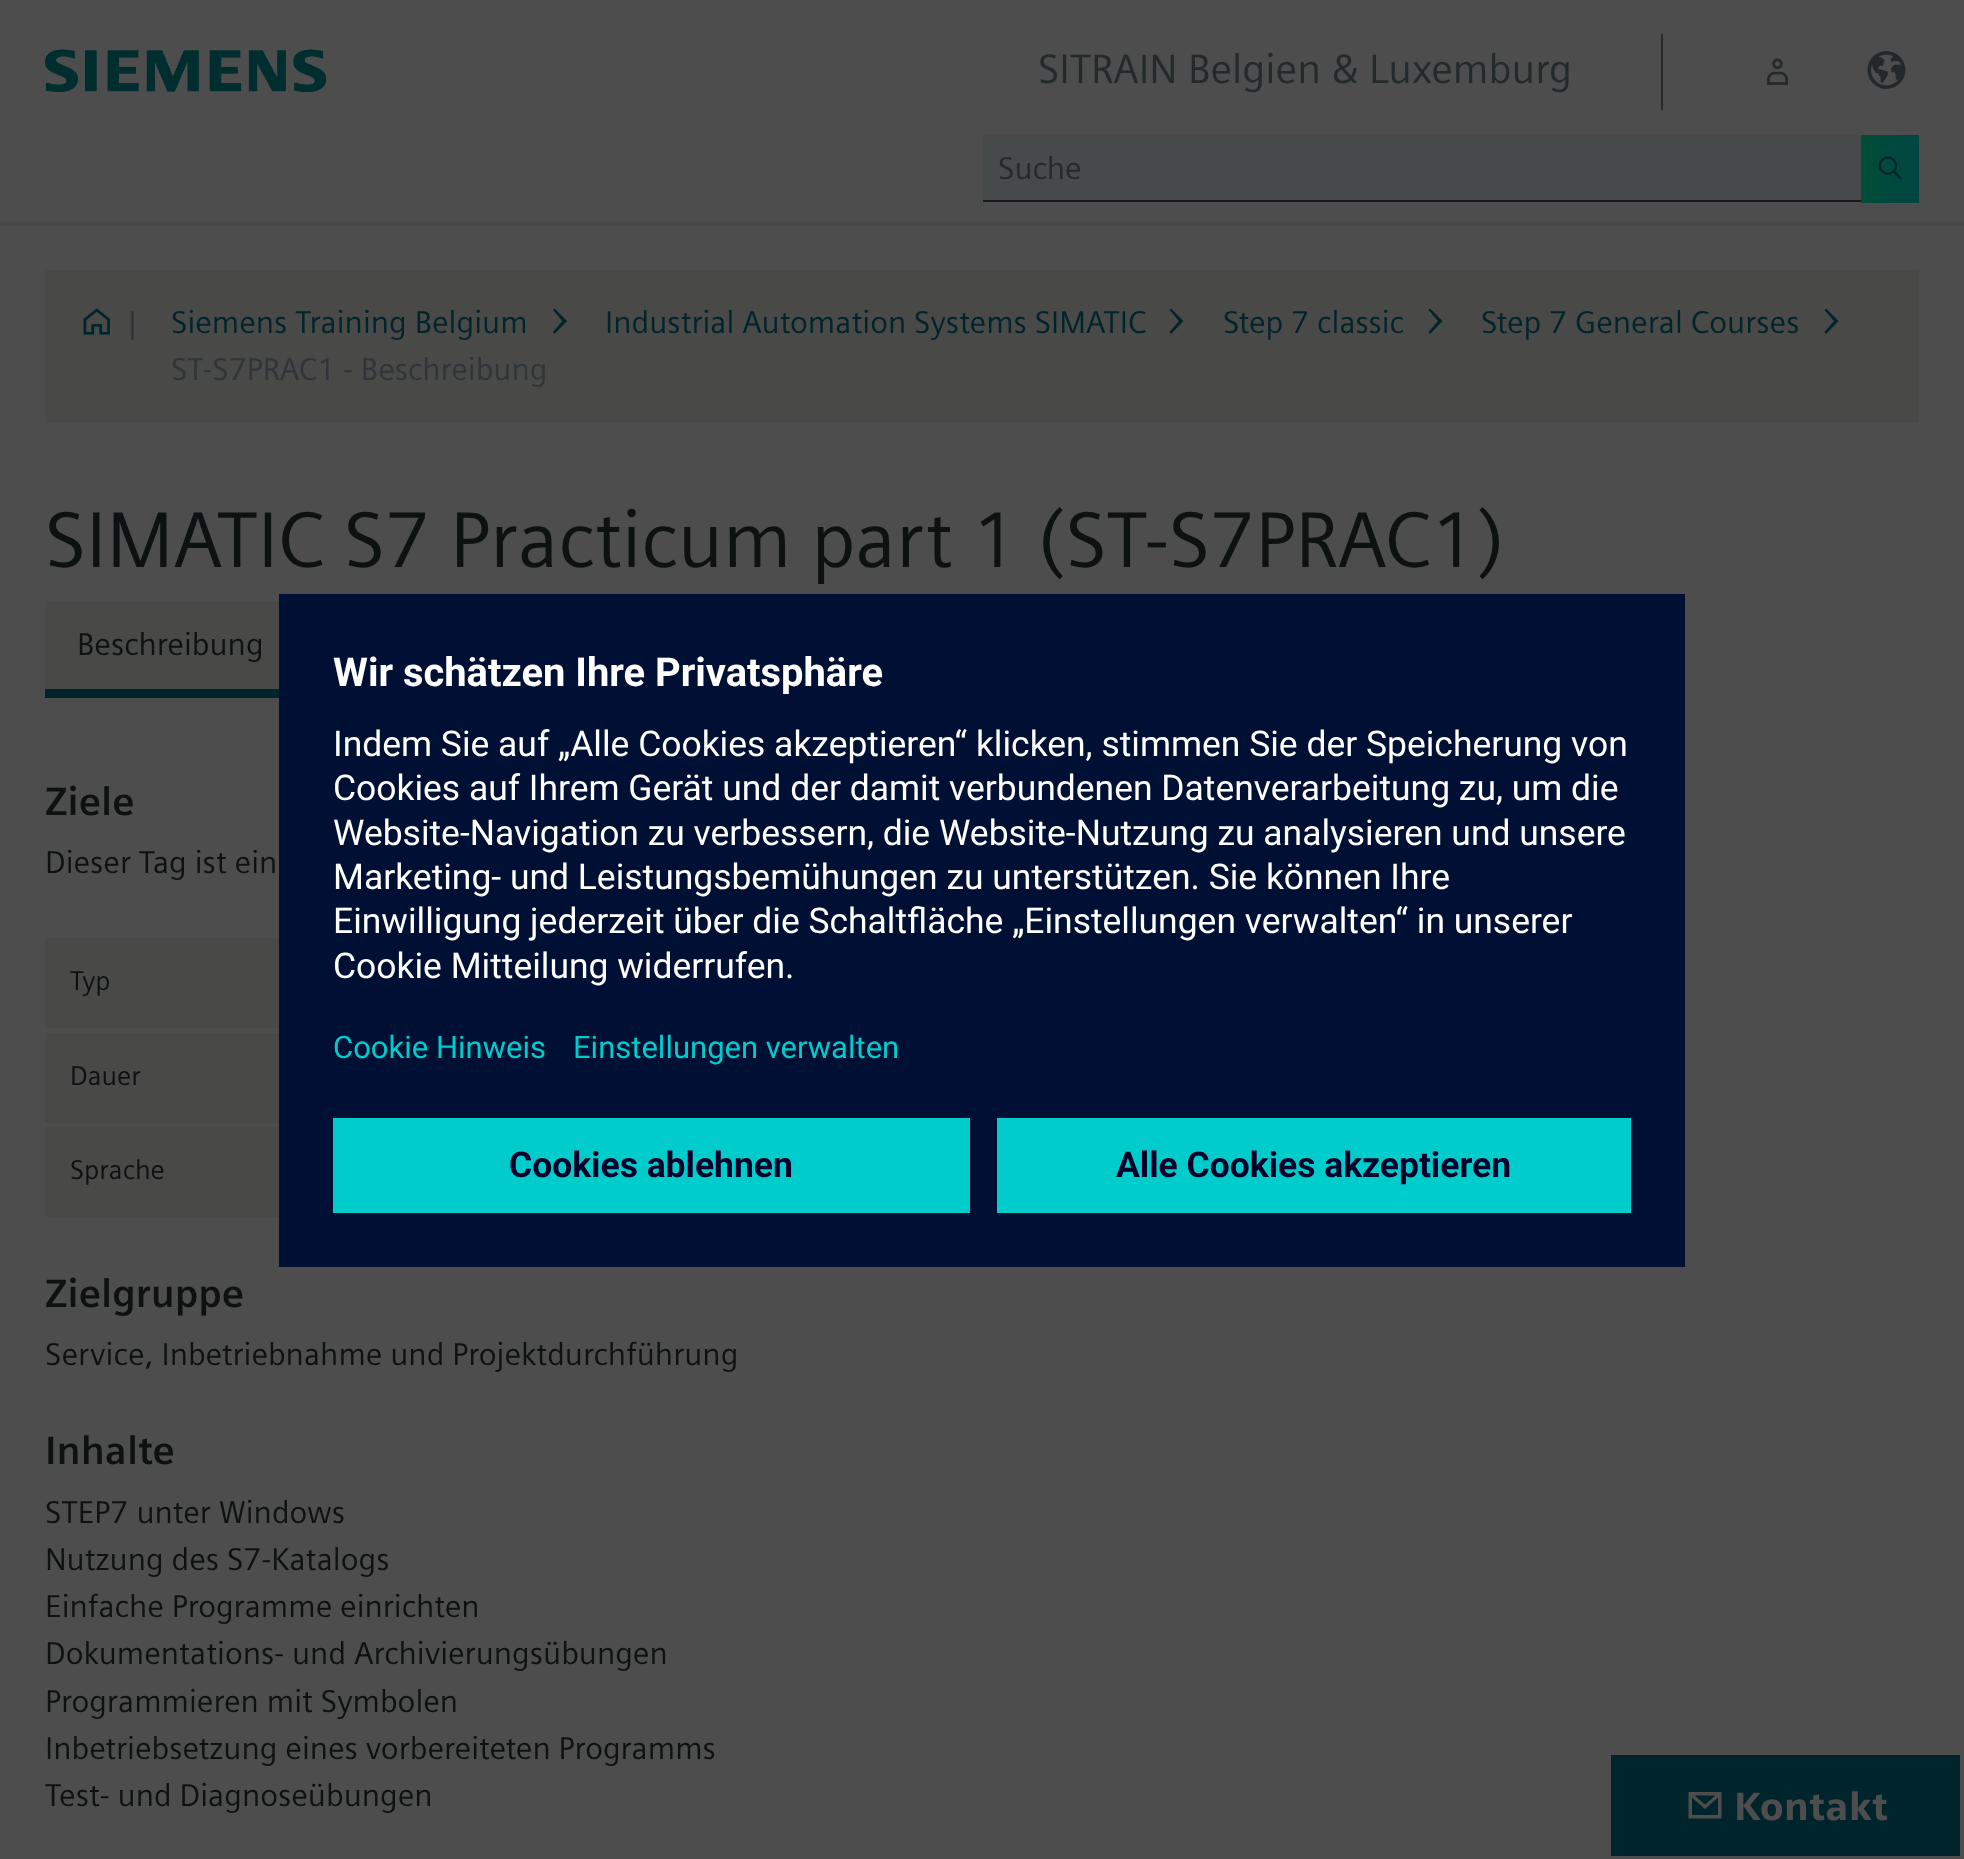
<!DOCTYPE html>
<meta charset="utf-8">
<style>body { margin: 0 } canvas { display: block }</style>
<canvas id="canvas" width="1964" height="1859"></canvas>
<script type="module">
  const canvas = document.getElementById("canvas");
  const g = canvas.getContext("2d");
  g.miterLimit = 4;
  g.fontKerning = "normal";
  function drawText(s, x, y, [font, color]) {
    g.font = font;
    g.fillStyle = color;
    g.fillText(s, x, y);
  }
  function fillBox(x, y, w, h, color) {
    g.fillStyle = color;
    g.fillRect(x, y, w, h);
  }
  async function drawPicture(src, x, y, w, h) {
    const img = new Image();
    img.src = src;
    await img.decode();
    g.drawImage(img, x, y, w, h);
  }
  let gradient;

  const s1 = ["41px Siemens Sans", "#24292C"];
  const s2 = ["31.5px Siemens Sans", "#24292C"];
  const s3 = ["31.5px Siemens Sans", "#2F3539"];
  const s4 = ["31.5px Siemens Sans", "#00242C"];
  const s5 = ["78.75px Siemens Sans", "#0E1112"];
  const s6 = ["31.5px Siemens Sans", "#0E1112"];
  const s7 = ["bold 39.5px Siemens Sans", "#0E1112"];
  const s8 = ["27px Siemens Sans", "#0E1112"];
  const s9 = ["bold 39.9px Roboto", "#FFFFFF"];
  const s10 = ["35.45px Roboto", "#FFFFFF"];
  const s11 = ["31px Roboto", "#00CCCC"];
  const s12 = ["bold 35.45px Roboto", "#000028"];
  const s13 = ["900 39.5px Siemens Sans", "#4D4D4D"];

  fillBox(0, 0, 1964, 1859, "#4D4D4D");
  fillBox(0, 221, 1964, 5, "#494948");
  await drawPicture("pic1.png", 45, 49, 282, 44);
  fillBox(1661, 34, 2, 76, "#24292C");
  drawText("SITRAIN Belgien & Luxemburg", 1038, 83, s1);
  await drawPicture("pic2.png", 1767, 58, 21, 27);
  await drawPicture("pic3.png", 1867, 51, 39, 38);
  fillBox(983, 135, 878, 65, "#474A4A");
  fillBox(983, 200, 880, 2, "#17171F");
  drawText("Suche", 998, 179, s2);
  gradient = g.createLinearGradient(1861, 169, 1919, 169);
  gradient.addColorStop(0, "#004D38");
  gradient.addColorStop(1, "#004542");
  g.fillStyle = gradient;
  g.fillRect(1861, 135, 58, 68);
  await drawPicture("pic4.png", 1878, 156, 24, 24);
  fillBox(45, 270, 1874, 153, "#494948");
  await drawPicture("pic5.png", 83, 308, 27, 27);
  drawText("|", 128, 333, s3);
  drawText("Siemens Training Belgium", 171, 333, s4);
  g.beginPath();
  g.moveTo(567, 321);
  g.lineTo(554.5, 308.5);
  g.lineTo(553, 310);
  g.lineTo(562.5, 321);
  g.lineTo(553, 332);
  g.lineTo(554.5, 334);
  g.closePath();
  g.fill();
  drawText("Industrial Automation Systems SIMATIC", 605, 333, s4);
  g.beginPath();
  g.moveTo(1183.5, 321);
  g.lineTo(1171, 308.5);
  g.lineTo(1169.5, 310);
  g.lineTo(1179, 321);
  g.lineTo(1169.5, 332);
  g.lineTo(1171, 334);
  g.closePath();
  g.fill();
  drawText("Step 7 classic", 1223, 333, s4);
  g.beginPath();
  g.moveTo(1442.5, 321);
  g.lineTo(1430, 308.5);
  g.lineTo(1428.5, 310);
  g.lineTo(1438, 321);
  g.lineTo(1428.5, 332);
  g.lineTo(1430, 334);
  g.closePath();
  g.fill();
  drawText("Step 7 General Courses", 1481, 333, s4);
  g.beginPath();
  g.moveTo(1838.5, 321);
  g.lineTo(1826, 308.5);
  g.lineTo(1824.5, 310);
  g.lineTo(1834, 321);
  g.lineTo(1824.5, 332);
  g.lineTo(1826, 334);
  g.closePath();
  g.fill();
  drawText("ST-S7PRAC1 - Beschreibung", 171, 380, s3);
  drawText("SIMATIC S7 Practicum part 1 (ST-S7PRAC1)", 45, 567, s5);
  fillBox(45, 601, 234, 88, "#494948");
  fillBox(45, 689, 234, 9, "#00242C");
  drawText("Beschreibung", 77, 655, s6);
  drawText("Ziele", 45, 815, s7);
  drawText("Dieser Tag ist ein", 45, 873, s6);
  fillBox(45, 938, 234, 90, "#494948");
  drawText("Typ", 70, 990, s8);
  fillBox(45, 1033, 234, 90, "#494948");
  drawText("Dauer", 70, 1085, s8);
  fillBox(45, 1127, 234, 90, "#494948");
  drawText("Sprache", 70, 1179, s8);
  drawText("Zielgruppe", 45, 1307, s7);
  drawText("Service, Inbetriebnahme und Projektdurchführung", 45, 1365, s6);
  drawText("Inhalte", 45, 1464, s7);
  drawText("STEP7 unter Windows", 45, 1523, s6);
  drawText("Nutzung des S7-Katalogs", 45, 1570, s6);
  drawText("Einfache Programme einrichten", 45, 1617, s6);
  drawText("Dokumentations- und Archivierungsübungen", 45, 1664, s6);
  drawText("Programmieren mit Symbolen", 45, 1712, s6);
  drawText("Inbetriebsetzung eines vorbereiteten Programms", 45, 1759, s6);
  drawText("Test- und Diagnoseübungen", 45, 1806, s6);
  fillBox(279, 594, 1406, 673, "#001034");
  drawText("Wir schätzen Ihre Privatsphäre", 333, 686, s9);
  drawText("Indem Sie auf „Alle Cookies akzeptieren“ klicken, stimmen Sie der Speicherung von", 333, 756, s10);
  drawText("Cookies auf Ihrem Gerät und der damit verbundenen Datenverarbeitung zu, um die", 333, 800, s10);
  drawText("Website-Navigation zu verbessern, die Website-Nutzung zu analysieren und unsere", 333, 845, s10);
  drawText("Marketing- und Leistungsbemühungen zu unterstützen. Sie können Ihre", 333, 889, s10);
  drawText("Einwilligung jederzeit über die Schaltfläche „Einstellungen verwalten“ in unserer", 333, 933, s10);
  drawText("Cookie Mitteilung widerrufen.", 333, 978, s10);
  drawText("Cookie Hinweis", 333, 1058, s11);
  drawText("Einstellungen verwalten", 573, 1058, s11);
  fillBox(333, 1118, 637, 95, "#00CCCC");
  drawText("Cookies ablehnen", 509, 1177, s12);
  fillBox(997, 1118, 634, 95, "#00CCCC");
  drawText("Alle Cookies akzeptieren", 1116, 1177, s12);
  fillBox(1611, 1755, 349, 101, "#00242C");
  g.fillStyle = "#4D4D4D";
  g.beginPath();
  g.moveTo(1688.5, 1792);
  g.lineTo(1688.5, 1818.5);
  g.lineTo(1721.5, 1818.5);
  g.lineTo(1721.5, 1792);
  g.closePath();
  g.moveTo(1715.5, 1795.5);
  g.lineTo(1705, 1804.5);
  g.lineTo(1694.5, 1795.5);
  g.closePath();
  g.moveTo(1692, 1815);
  g.lineTo(1692, 1797.5);
  g.lineTo(1705, 1809);
  g.lineTo(1718, 1797.5);
  g.lineTo(1718, 1815);
  g.closePath();
  g.fill();
  drawText("Kontakt", 1734, 1820, s13);
</script>
